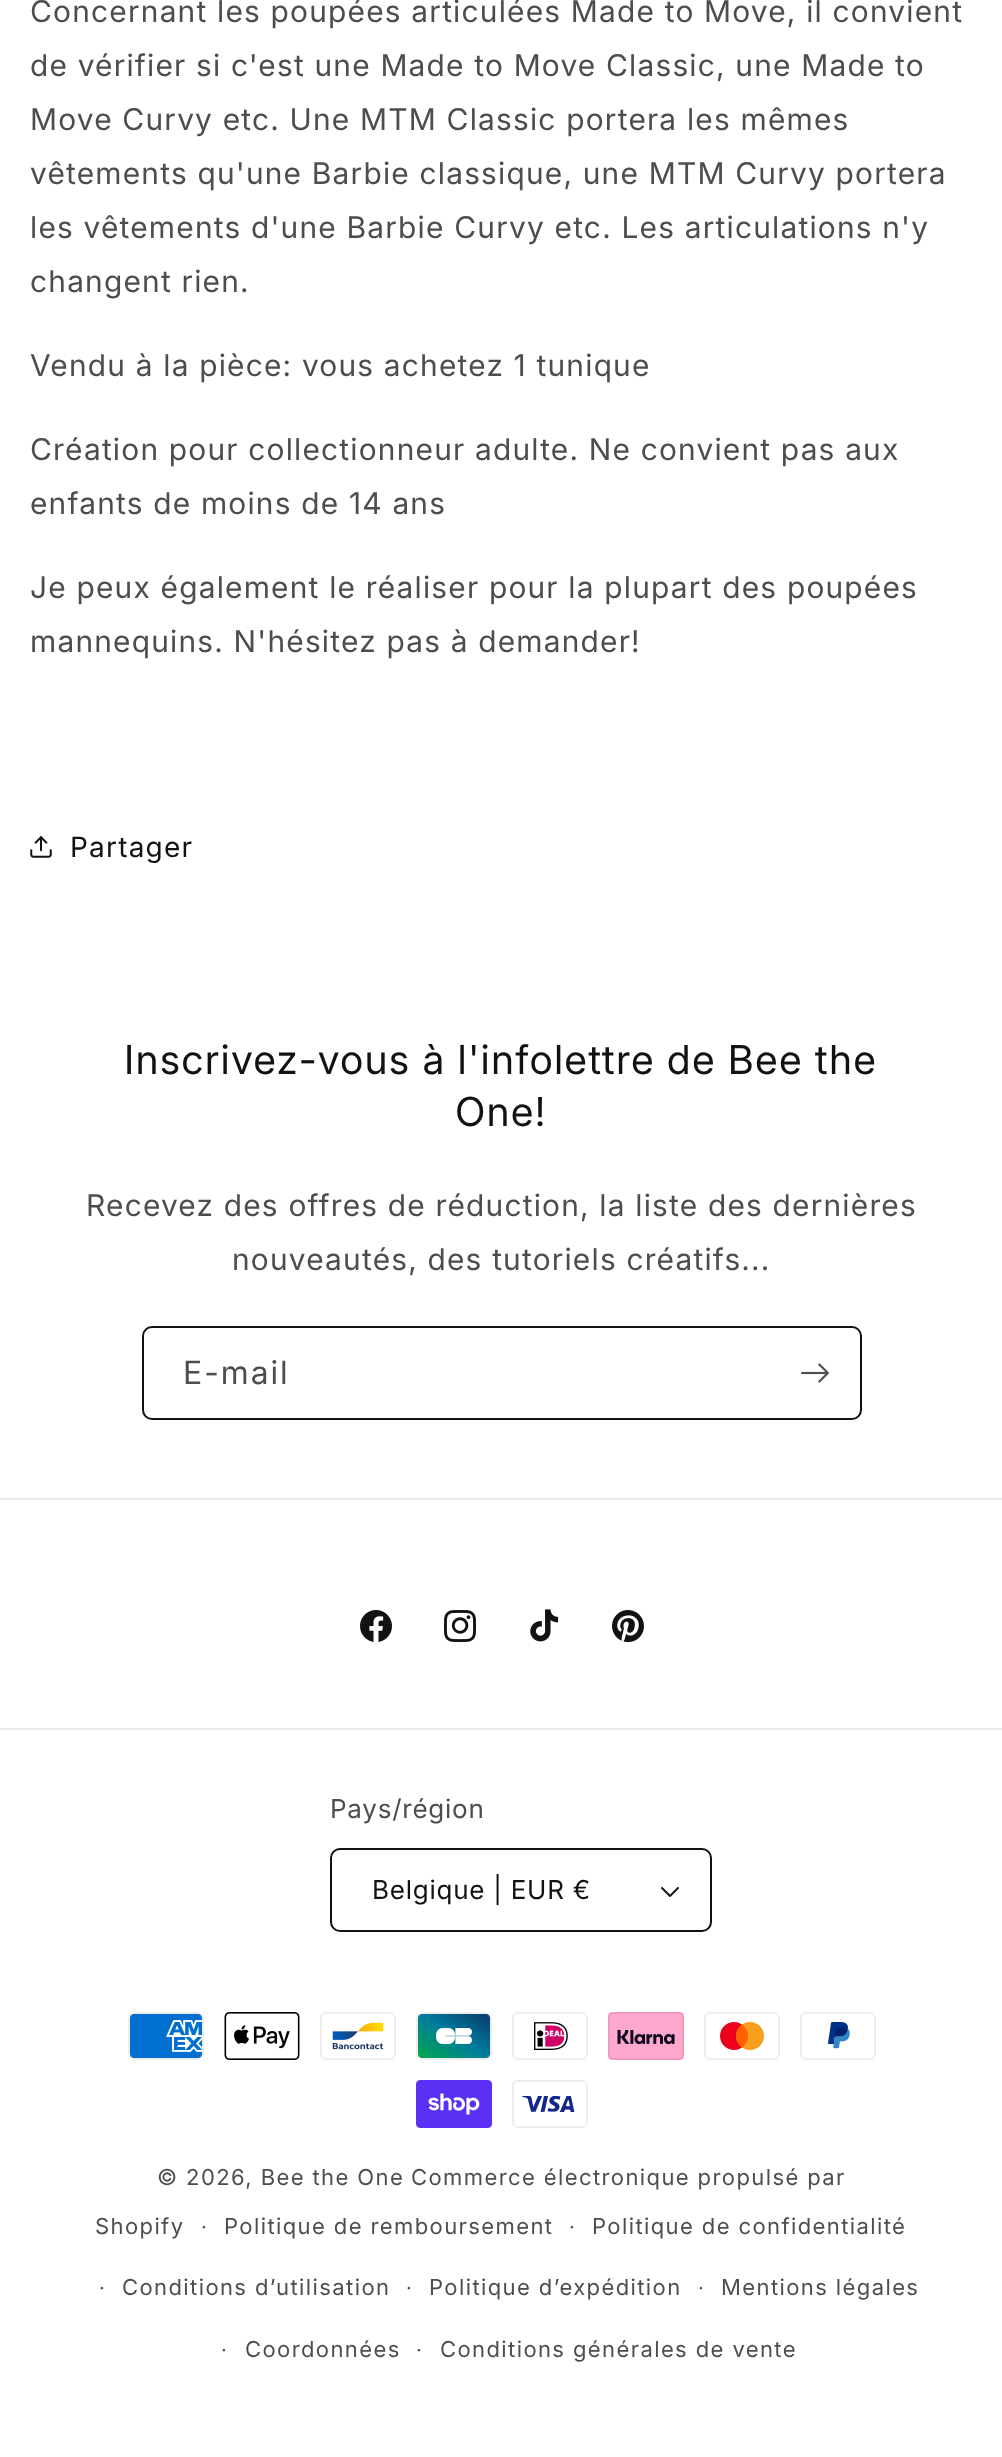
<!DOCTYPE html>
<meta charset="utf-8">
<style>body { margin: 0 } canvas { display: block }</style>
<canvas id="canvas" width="1002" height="2457"></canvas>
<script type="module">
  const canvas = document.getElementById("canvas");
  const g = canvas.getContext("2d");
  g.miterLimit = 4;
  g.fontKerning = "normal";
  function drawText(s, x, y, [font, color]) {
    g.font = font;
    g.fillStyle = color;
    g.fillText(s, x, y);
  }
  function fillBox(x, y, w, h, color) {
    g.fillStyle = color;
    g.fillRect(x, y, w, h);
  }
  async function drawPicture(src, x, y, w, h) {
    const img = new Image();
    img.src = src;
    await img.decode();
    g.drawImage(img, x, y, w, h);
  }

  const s1 = ["30px 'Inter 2'", "#4D4D4D"];
  const s2 = ["28px Inter", "#121212"];
  const s3 = ["40px 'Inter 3'", "#121212"];
  const s4 = ["32px 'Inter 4'", "#4D4D4D"];
  const s5 = ["26px Inter", "#4D4D4D"];
  const s6 = ["26px Inter", "#121212"];
  const s7 = ["22px Inter", "#4D4D4D"];
  const s8 = ["20px Inter", "#4D4D4D"];

  fillBox(0, 0, 1002, 2457, "#FFFFFF");
  g.letterSpacing = "1.2px";
  drawText("Concernant les poupées articulées Made to Move, il convient", 30, 22, s1);
  drawText("de vérifier si c'est une Made to Move Classic, une Made to", 30, 76, s1);
  drawText("Move Curvy etc. Une MTM Classic portera les mêmes", 30, 130, s1);
  drawText("vêtements qu'une Barbie classique, une MTM Curvy portera", 30, 184, s1);
  drawText("les vêtements d'une Barbie Curvy etc. Les articulations n'y", 30, 238, s1);
  drawText("changent rien.", 30, 292, s1);
  drawText("Vendu à la pièce: vous achetez 1 tunique", 30, 376, s1);
  drawText("Création pour collectionneur adulte. Ne convient pas aux", 30, 460, s1);
  drawText("enfants de moins de 14 ans", 30, 514, s1);
  drawText("Je peux également le réaliser pour la plupart des poupées", 30, 598, s1);
  drawText("mannequins. N'hésitez pas à demander!", 30, 652, s1);
  await drawPicture("pic1.png", 30, 836, 22, 22);
  drawText("Partager", 70, 857, s2);
  drawText("Inscrivez-vous à l'infolettre de Bee the", 124, 1074, s3);
  drawText("One!", 455, 1126, s3);
  drawText("Recevez des offres de réduction, la liste des dernières", 86, 1216, s1);
  drawText("nouveautés, des tutoriels créatifs...", 232, 1270, s1);
  g.beginPath();
  g.roundRect(143, 1327, 718, 92, 9);
  g.strokeStyle = "#121212";
  g.lineWidth = 2;
  g.stroke();
  g.letterSpacing = "2px";
  drawText("E-mail", 183, 1384, s4);
  await drawPicture("pic2.png", 801, 1363, 28, 20);
  fillBox(0, 1498, 1002, 2, "#ECECEC");
  await drawPicture("pic3.png", 360, 1610, 32, 32);
  await drawPicture("pic4.png", 444, 1610, 32, 32);
  await drawPicture("pic5.png", 530, 1609, 29, 33);
  await drawPicture("pic6.png", 612, 1610, 32, 33);
  fillBox(0, 1728, 1002, 2, "#ECECEC");
  g.letterSpacing = "0.75px";
  drawText("Pays/région", 330, 1818, s5);
  await drawPicture("pic7.png", 661, 1887, 18, 10);
  g.beginPath();
  g.roundRect(331, 1849, 380, 82, 9);
  g.stroke();
  drawText("Belgique | EUR €", 372, 1899, s6);
  await drawPicture("pic8.png", 128, 2012, 76, 48);
  await drawPicture("pic9.png", 224, 2012, 76, 48);
  await drawPicture("pic10.png", 320, 2012, 76, 48);
  await drawPicture("pic11.png", 416, 2012, 76, 48);
  await drawPicture("pic12.png", 512, 2012, 76, 48);
  await drawPicture("pic13.png", 608, 2012, 76, 48);
  await drawPicture("pic14.png", 704, 2012, 76, 48);
  await drawPicture("pic15.png", 800, 2012, 76, 48);
  await drawPicture("pic16.png", 416, 2080, 76, 48);
  await drawPicture("pic17.png", 512, 2080, 76, 48);
  g.letterSpacing = "1.4px";
  drawText("© 2026, Bee the One", 157, 2185, s7);
  drawText("Commerce électronique propulsé par", 411, 2185, s7);
  drawText("Shopify", 95, 2234, s7);
  drawText("·", 201, 2234, s8);
  drawText("Politique de remboursement", 224, 2234, s7);
  drawText("·", 569, 2234, s8);
  drawText("Politique de confidentialité", 592, 2234, s7);
  drawText("·", 99, 2295, s8);
  drawText("Conditions d’utilisation", 122, 2295, s7);
  drawText("·", 406, 2295, s8);
  drawText("Politique d’expédition", 429, 2295, s7);
  drawText("·", 698, 2295, s8);
  drawText("Mentions légales", 721, 2295, s7);
  drawText("·", 221, 2357, s8);
  drawText("Coordonnées", 245, 2357, s7);
  drawText("·", 416, 2357, s8);
  drawText("Conditions générales de vente", 440, 2357, s7);
</script>
